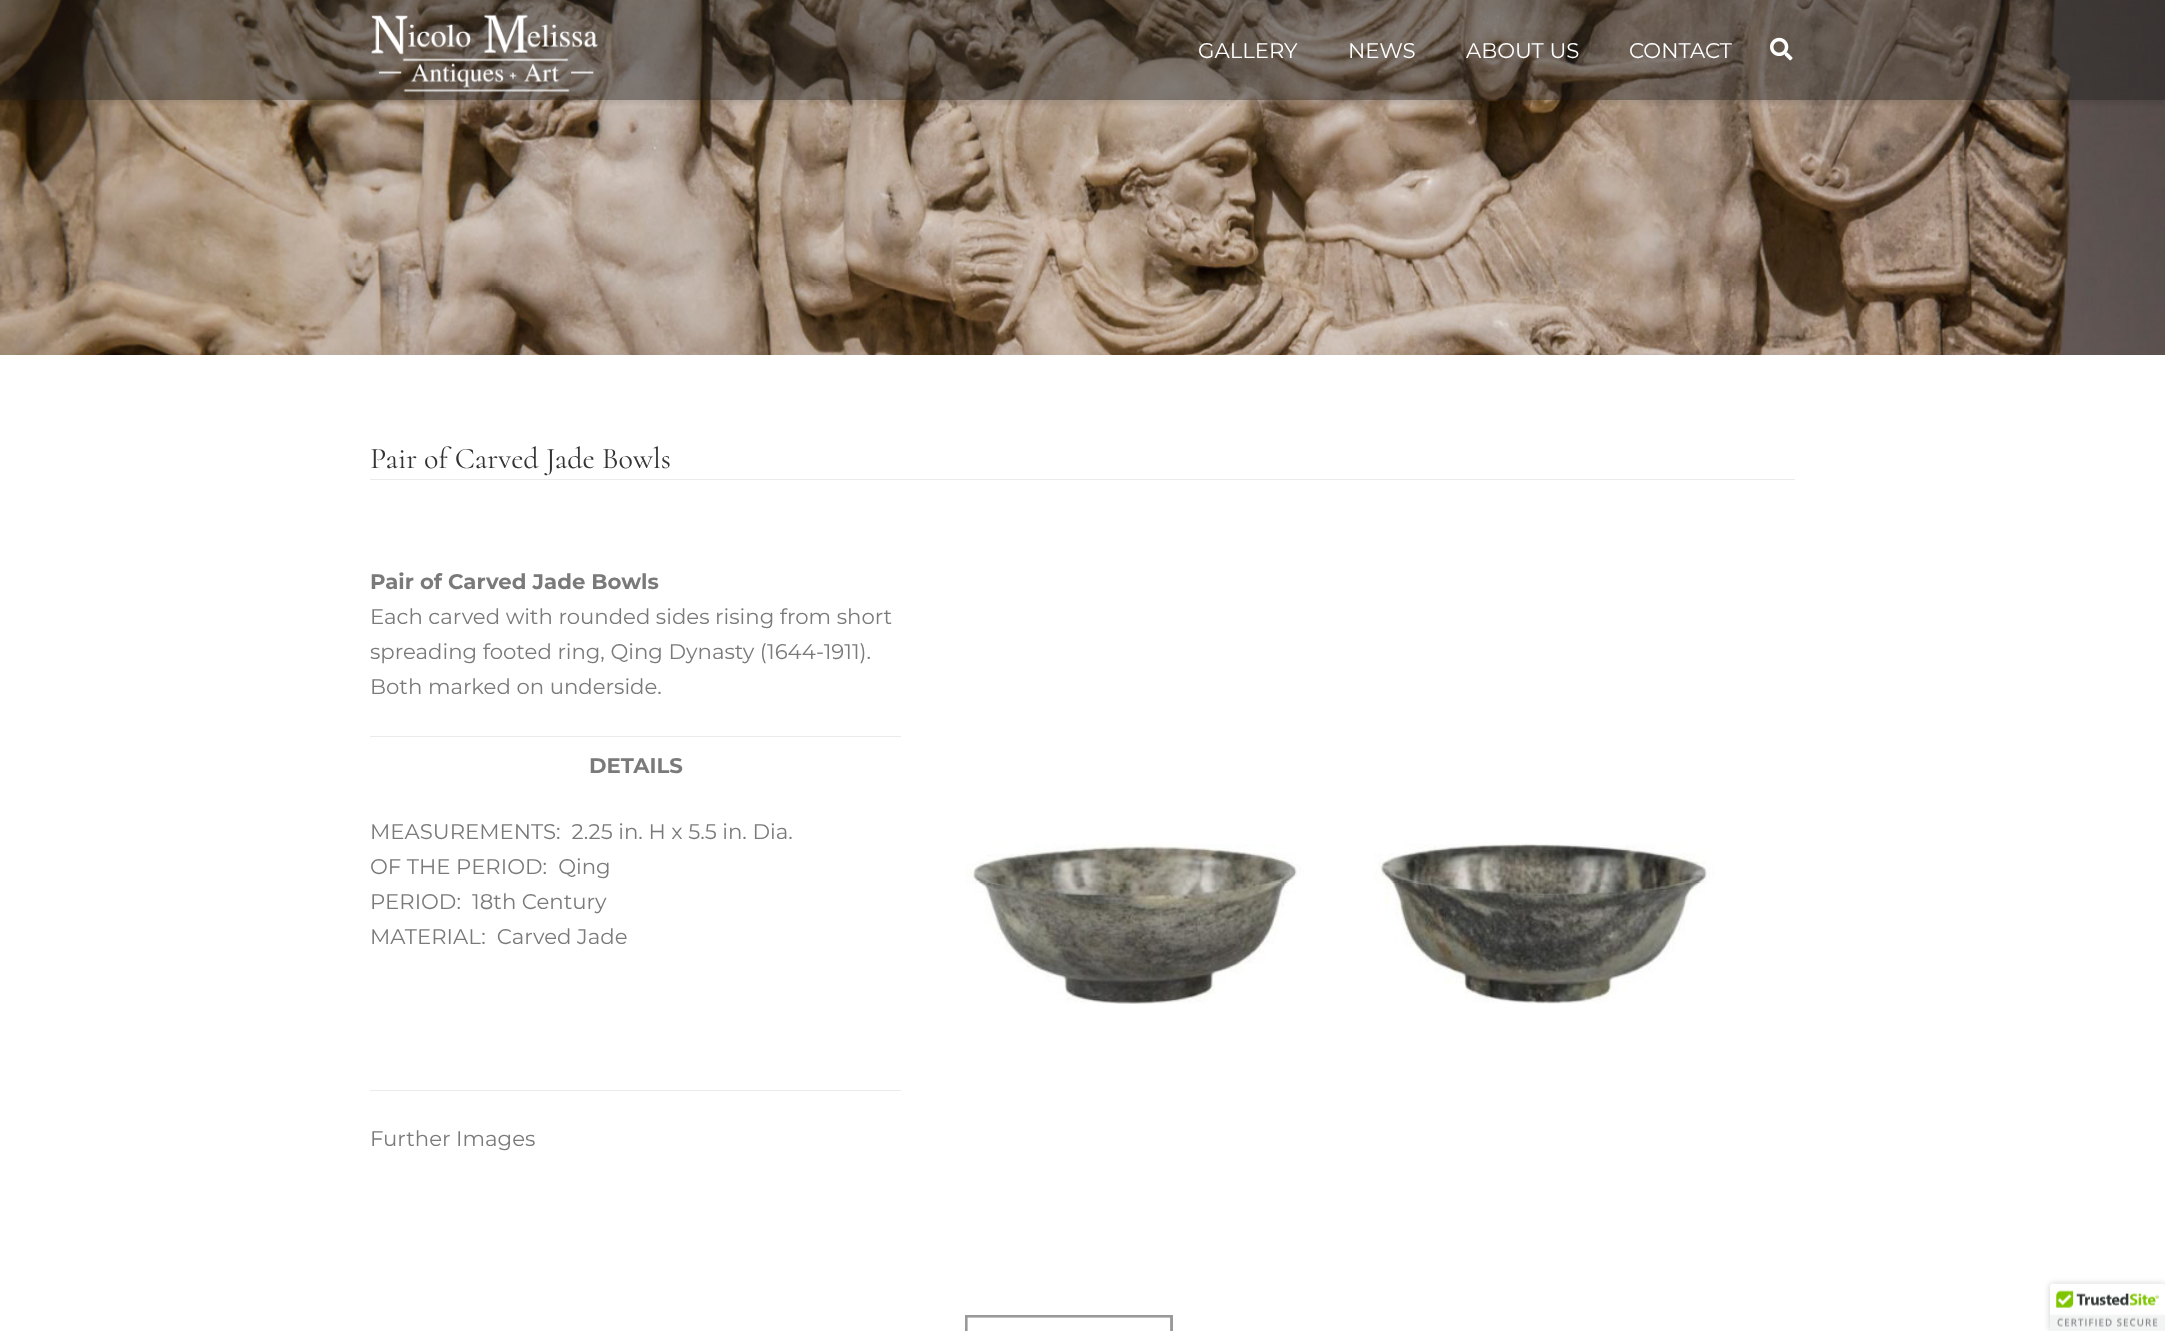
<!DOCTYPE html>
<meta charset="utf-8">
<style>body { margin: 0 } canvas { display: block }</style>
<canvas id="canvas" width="2165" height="1331"></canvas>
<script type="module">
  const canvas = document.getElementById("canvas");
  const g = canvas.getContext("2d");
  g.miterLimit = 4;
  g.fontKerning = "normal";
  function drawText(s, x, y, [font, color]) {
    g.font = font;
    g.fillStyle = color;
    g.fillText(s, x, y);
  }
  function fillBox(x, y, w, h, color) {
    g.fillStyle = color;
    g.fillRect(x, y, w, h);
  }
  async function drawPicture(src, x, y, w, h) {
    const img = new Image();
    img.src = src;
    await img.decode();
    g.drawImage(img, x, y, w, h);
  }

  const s1 = ["100 21.25px 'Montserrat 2'", "#FFFFFF"];
  const s2 = ["300 30px Cormorant", "#333333"];
  const s3 = ["100 21.25px Montserrat", "#7A7A7A"];
  const s4 = ["100 21.25px 'Montserrat 2'", "#7A7A7A"];

  fillBox(0, 0, 2165, 1331, "#FFFFFF");
  await drawPicture("pic3.png", 0, 0, 2165, 355);
  g.save();
  g.beginPath();
  g.rect(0, 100, 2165, 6);
  g.clip();
  g.fillStyle = "rgba(0, 0, 0, 0.1)";
  g.filter = "blur(3px)";
  g.beginPath();
  g.rect(1, 5, 2163, 98);
  g.fill();
  g.filter = "none";
  g.restore();
  fillBox(0, 0, 2165, 100, "rgba(26, 26, 26, 0.43)");
  await drawPicture("pic1.png", 371, 14, 227, 79);
  drawText("GALLERY", 1198, 58, s1);
  drawText("NEWS", 1348, 58, s1);
  drawText("ABOUT US", 1466, 58, s1);
  drawText("CONTACT", 1629, 58, s1);
  await drawPicture("pic2.png", 1770, 37, 23, 24);
  drawText("Pair of Carved Jade Bowls", 370, 468, s2);
  fillBox(370, 479, 1425, 1, "#EBEBEB");
  drawText("Pair of Carved Jade Bowls", 370, 589, s3);
  drawText("Each carved with rounded sides rising from short", 370, 624, s4);
  drawText("spreading footed ring, Qing Dynasty (1644-1911).", 370, 659, s4);
  drawText("Both marked on underside.", 370, 694, s4);
  fillBox(370, 736, 531, 1, "#EBEBEB");
  drawText("DETAILS", 589, 773, s3);
  drawText("MEASUREMENTS:  2.25 in. H x 5.5 in. Dia.", 370, 839, s4);
  drawText("OF THE PERIOD:  Qing", 370, 874, s4);
  drawText("PERIOD:  18th Century", 370, 909, s4);
  drawText("MATERIAL:  Carved Jade", 370, 944, s4);
  fillBox(370, 1090, 531, 1, "#EBEBEB");
  drawText("Further Images", 370, 1146, s4);
  await drawPicture("pic4.png", 965, 843, 749, 161);
  g.strokeStyle = "#999999";
  g.lineWidth = 3;
  g.strokeRect(966.5, 1316.5, 205, 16);
  await drawPicture("pic5.png", 967, 1317, 204, 14);
  g.fillStyle = "rgba(0, 0, 0, 0.2)";
  g.filter = "blur(3px)";
  g.beginPath();
  g.roundRect(2050, 1284, 115, 47, 2.5);
  g.fill();
  g.filter = "none";
  g.fillStyle = "#FFFFFF";
  g.beginPath();
  g.roundRect(2050, 1284, 115, 47, [2.5, 0, 0, 0]);
  g.fill();
  await drawPicture("pic6.png", 2050, 1283, 115, 48);
</script>
